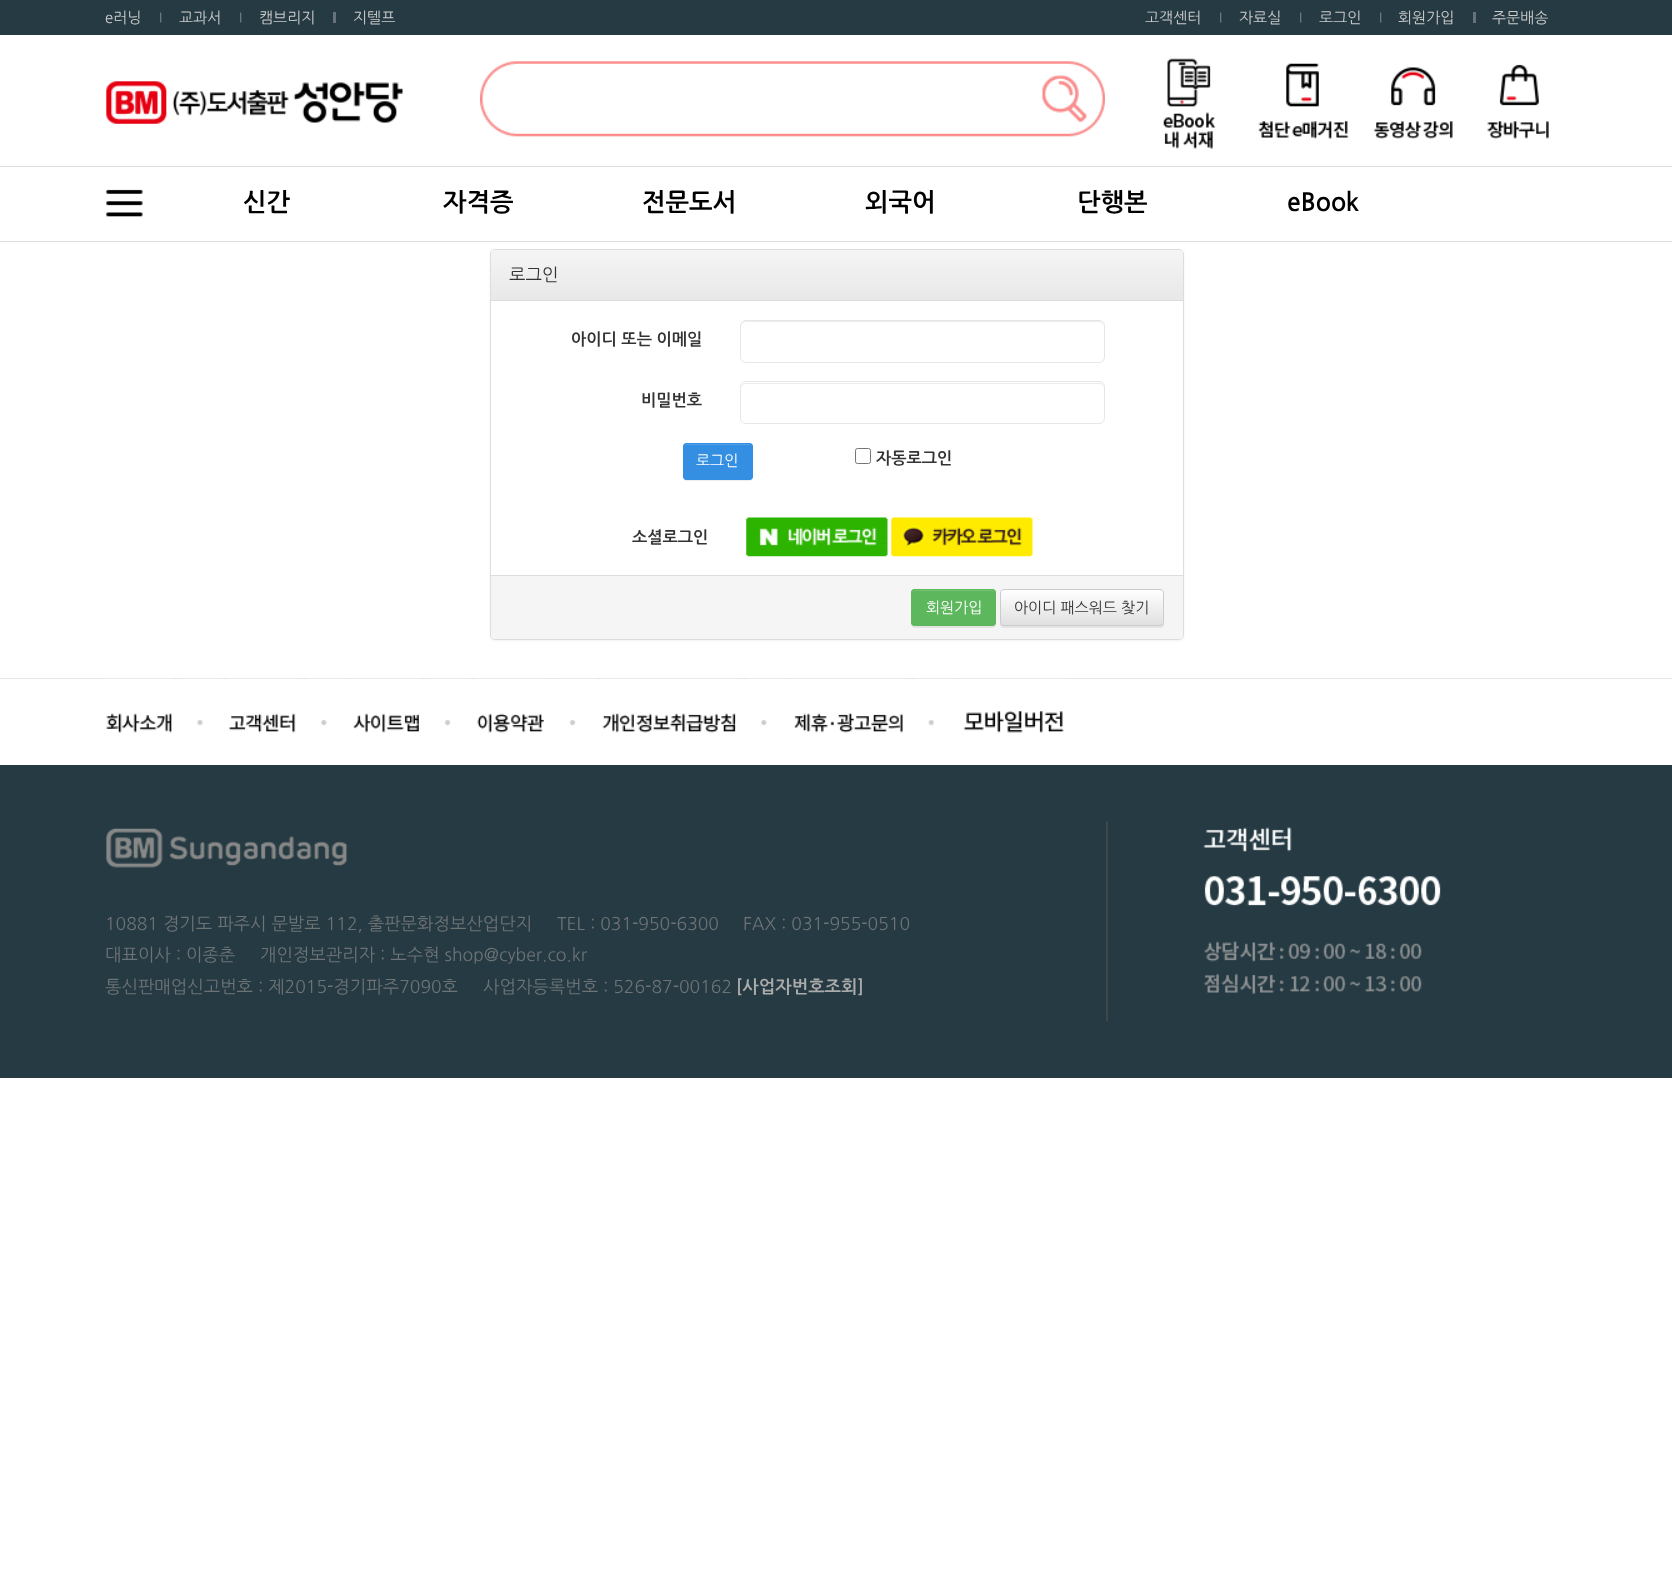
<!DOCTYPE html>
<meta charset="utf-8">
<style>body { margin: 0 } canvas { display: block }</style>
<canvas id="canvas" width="1672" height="1583"></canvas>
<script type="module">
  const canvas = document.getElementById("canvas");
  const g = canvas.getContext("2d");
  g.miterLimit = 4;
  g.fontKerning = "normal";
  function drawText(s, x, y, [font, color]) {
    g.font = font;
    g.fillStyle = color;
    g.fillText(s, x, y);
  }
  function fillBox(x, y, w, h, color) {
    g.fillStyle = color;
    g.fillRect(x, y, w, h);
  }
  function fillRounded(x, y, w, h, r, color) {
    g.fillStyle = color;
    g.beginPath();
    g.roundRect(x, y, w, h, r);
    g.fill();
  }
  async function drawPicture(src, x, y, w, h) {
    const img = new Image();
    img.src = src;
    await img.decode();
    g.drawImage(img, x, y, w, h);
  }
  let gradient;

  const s1 = ["15px NanumGothic", "#CCCCCC"];
  const s2 = ["bold 25px NanumGothic", "#000000"];
  const s3 = ["17.5px NanumGothic", "#333333"];
  const s4 = ["bold 16.25px NanumGothic", "#333333"];
  const s5 = ["15px NanumGothic", "#FFFFFF"];
  const s6 = ["15px NanumGothic", "#333333"];
  const s7 = ["17.5px NanumGothic", "#6E7376"];
  const s8 = ["bold 17.5px NanumGothic", "#AAAAAA"];

  fillBox(0, 0, 1672, 1583, "#FFFFFF");
  fillBox(0, 0, 1672, 35, "#253A42");
  drawText("e러닝", 105, 23, s1);
  await drawPicture("pic1.png", 160, 12, 2, 11);
  drawText("교과서", 179, 23, s1);
  await drawPicture("pic1.png", 240, 12, 2, 11);
  drawText("캠브리지", 259, 23, s1);
  fillBox(333, 12, 3, 11, "#67727A");
  drawText("지텔프", 353, 23, s1);
  drawText("고객센터", 1145, 23, s1);
  await drawPicture("pic1.png", 1220, 12, 2, 11);
  drawText("자료실", 1239, 23, s1);
  await drawPicture("pic1.png", 1300, 12, 2, 11);
  drawText("로그인", 1319, 23, s1);
  await drawPicture("pic1.png", 1380, 12, 2, 11);
  drawText("회원가입", 1398, 23, s1);
  fillBox(1473, 12, 3, 11, "#67727A");
  drawText("주문배송", 1492, 23, s1);
  await drawPicture("pic2.png", 105, 81, 332, 85);
  await drawPicture("pic3.png", 516, 61, 514, 105);
  await drawPicture("pic4.png", 480, 61, 37, 105);
  await drawPicture("pic5.png", 1030, 61, 75, 105);
  await drawPicture("pic6.png", 1133, 58, 114, 108);
  await drawPicture("pic7.png", 1246, 63, 113, 103);
  await drawPicture("pic8.png", 1358, 67, 114, 99);
  await drawPicture("pic9.png", 1471, 64, 97, 102);
  fillBox(0, 166, 1672, 1, "#DDDDDD");
  fillBox(0, 241, 1672, 1, "#DDDDDD");
  await drawPicture("pic10.png", 106, 189, 37, 28);
  drawText("신간", 243, 211, s2);
  drawText("자격증", 443, 211, s2);
  drawText("전문도서", 642, 211, s2);
  drawText("외국어", 865, 211, s2);
  drawText("단행본", 1077, 211, s2);
  drawText("eBook", 1287, 211, s2);
  g.fillStyle = "rgba(0, 0, 0, 0.05)";
  g.filter = "blur(1px)";
  g.beginPath();
  g.roundRect(490, 250, 694, 391, 5);
  g.fill();
  g.filter = "none";
  g.fillStyle = "#FFFFFF";
  g.beginPath();
  g.roundRect(490.5, 249.5, 693, 390, 4.5);
  g.fill();
  g.strokeStyle = "#DDDDDD";
  g.stroke();
  gradient = g.createLinearGradient(837, 250, 837, 300);
  gradient.addColorStop(0, "#F5F5F5");
  gradient.addColorStop(1, "#E8E8E8");
  g.fillStyle = gradient;
  g.beginPath();
  g.roundRect(491, 250, 692, 50, [4, 4, 0, 0]);
  g.fill();
  fillBox(491, 300, 692, 1, "#DDDDDD");
  drawText("로그인", 509, 281, s3);
  drawText("아이디 또는 이메일", 571, 345, s4);
  g.fillStyle = "#ECECEC";
  g.beginPath();
  g.moveTo(746, 322);
  g.lineTo(1099, 322);
  g.bezierCurveTo(1102, 322, 1104, 325, 1104, 328);
  g.bezierCurveTo(1104, 325, 1103, 321, 1099, 321);
  g.lineTo(746, 321);
  g.bezierCurveTo(742, 321, 741, 325, 741, 328);
  g.bezierCurveTo(741, 325, 743, 322, 746, 322);
  g.closePath();
  g.fill();
  g.beginPath();
  g.roundRect(740.5, 320.5, 364, 42, 5.5);
  g.strokeStyle = "#E5E6E7";
  g.stroke();
  drawText("비밀번호", 641, 406, s4);
  g.fillStyle = "#ECECEC";
  g.beginPath();
  g.moveTo(746, 384);
  g.lineTo(1099, 384);
  g.bezierCurveTo(1102, 384, 1104, 386, 1104, 389);
  g.lineTo(1104, 388);
  g.bezierCurveTo(1104, 385, 1102, 383, 1099, 383);
  g.lineTo(746, 383);
  g.bezierCurveTo(743, 383, 741, 385, 741, 388);
  g.lineTo(741, 389);
  g.bezierCurveTo(741, 386, 743, 384, 746, 384);
  g.closePath();
  g.fill();
  g.beginPath();
  g.roundRect(740.5, 381.5, 364, 42, 5.5);
  g.stroke();
  g.fillStyle = "rgba(0, 0, 0, 0.07)";
  g.filter = "blur(0.5px)";
  g.beginPath();
  g.roundRect(683, 444, 70, 37, 4);
  g.fill();
  g.filter = "none";
  fillRounded(683, 443, 70, 37, 4, "#348FE2");
  g.fillStyle = "#52A0E6";
  g.beginPath();
  g.moveTo(686, 445);
  g.lineTo(749, 445);
  g.bezierCurveTo(750, 445, 751, 446, 751, 448);
  g.bezierCurveTo(751, 441, 744, 444, 738, 444);
  g.lineTo(697, 444);
  g.bezierCurveTo(691, 444, 684, 441, 684, 448);
  g.bezierCurveTo(684, 446, 685, 445, 686, 445);
  g.closePath();
  g.fill();
  g.beginPath();
  g.roundRect(683.5, 443.5, 69, 36, 3.5);
  g.strokeStyle = "#348FE2";
  g.stroke();
  drawText("로그인", 696, 466, s5);
  g.beginPath();
  g.roundRect(855.5, 448.5, 15, 15, 2);
  g.strokeStyle = "#767676";
  g.stroke();
  drawText("자동로그인", 876, 464, s4);
  drawText("소셜로그인", 632, 543, s4);
  await drawPicture("pic11.png", 746, 517, 142, 40);
  await drawPicture("pic12.png", 891, 517, 142, 40);
  g.fillStyle = "#F5F5F5";
  g.beginPath();
  g.roundRect(491, 575, 692, 64, [0, 0, 4, 4]);
  g.fill();
  fillBox(491, 575, 692, 1, "#DDDDDD");
  g.fillStyle = "rgba(0, 0, 0, 0.07)";
  g.filter = "blur(0.5px)";
  g.beginPath();
  g.roundRect(911, 590, 85, 38, 4);
  g.fill();
  g.filter = "none";
  fillRounded(911, 589, 85, 37, 4, "#5DB75D");
  g.fillStyle = "#75C275";
  g.beginPath();
  g.moveTo(915, 591);
  g.lineTo(992, 591);
  g.bezierCurveTo(994, 591, 995, 592, 995, 594);
  g.lineTo(995, 592);
  g.bezierCurveTo(995, 591, 994, 590, 992, 590);
  g.lineTo(916, 590);
  g.bezierCurveTo(914, 590, 913, 591, 913, 592);
  g.closePath();
  g.fill();
  g.beginPath();
  g.roundRect(911.5, 589.5, 84, 36, 3.5);
  g.strokeStyle = "#5DB75D";
  g.stroke();
  drawText("회원가입", 926, 613, s5);
  g.fillStyle = "rgba(0, 0, 0, 0.07)";
  g.filter = "blur(0.5px)";
  g.beginPath();
  g.roundRect(1000, 590, 164, 38, 4);
  g.fill();
  g.filter = "none";
  g.save();
  g.beginPath();
  g.roundRect(1000, 589, 164, 37, 4);
  g.clip();
  gradient = g.createLinearGradient(1082, 590, 1082, 625);
  gradient.addColorStop(0, "#FFFFFF");
  gradient.addColorStop(1, "#E0E0E0");
  g.fillStyle = gradient;
  g.fillRect(1000, 590, 164, 35);
  g.restore();
  g.fillStyle = "rgba(255, 255, 255, 0.15)";
  g.beginPath();
  g.moveTo(1004, 591);
  g.lineTo(1160, 591);
  g.bezierCurveTo(1164, 591, 1162, 603, 1162, 604);
  g.lineTo(1162, 625);
  g.bezierCurveTo(1164, 623, 1163, 606, 1163, 602);
  g.lineTo(1163, 598);
  g.bezierCurveTo(1163, 596, 1164, 590, 1160, 590);
  g.lineTo(1004, 590);
  g.bezierCurveTo(1001, 590, 1001, 592, 1001, 594);
  g.bezierCurveTo(1001, 592, 1002, 591, 1004, 591);
  g.closePath();
  g.fill();
  g.beginPath();
  g.roundRect(1000.5, 589.5, 163, 36, 3.5);
  g.strokeStyle = "#CCCCCC";
  g.stroke();
  drawText("아이디 패스워드 찾기", 1014, 613, s6);
  fillBox(0, 678, 1672, 1, "#E5E5E5");
  await drawPicture("pic13.png", 105, 678, 67, 55);
  await drawPicture("pic14.png", 185, 678, 37, 48);
  await drawPicture("pic15.png", 228, 678, 68, 55);
  await drawPicture("pic16.png", 309, 678, 37, 48);
  await drawPicture("pic17.png", 353, 678, 67, 55);
  await drawPicture("pic18.png", 433, 678, 37, 48);
  await drawPicture("pic19.png", 476, 678, 69, 55);
  await drawPicture("pic18.png", 558, 678, 37, 48);
  await drawPicture("pic20.png", 601, 678, 135, 55);
  await drawPicture("pic21.png", 749, 678, 37, 48);
  await drawPicture("pic22.png", 793, 678, 111, 55);
  await drawPicture("pic23.png", 916, 678, 38, 48);
  await drawPicture("pic24.png", 960, 678, 106, 55);
  fillBox(0, 765, 1672, 313, "#253A42");
  await drawPicture("pic25.png", 106, 828, 242, 40);
  drawText("10881 경기도 파주시 문발로 112, 출판문화정보산업단지", 105, 930, s7);
  drawText("TEL : 031-950-6300", 557, 930, s7);
  drawText("FAX : 031-955-0510", 743, 930, s7);
  drawText("대표이사 : 이종춘", 105, 961, s7);
  drawText("개인정보관리자 : 노수현 shop@cyber.co.kr", 260, 961, s7);
  drawText("통신판매업신고번호 : 제2015-경기파주7090호", 105, 993, s7);
  drawText("사업자등록번호 : 526-87-00162", 483, 993, s7);
  drawText("[사업자번호조회]", 736, 993, s8);
  await drawPicture("pic26.png", 1106, 821, 335, 201);
</script>
